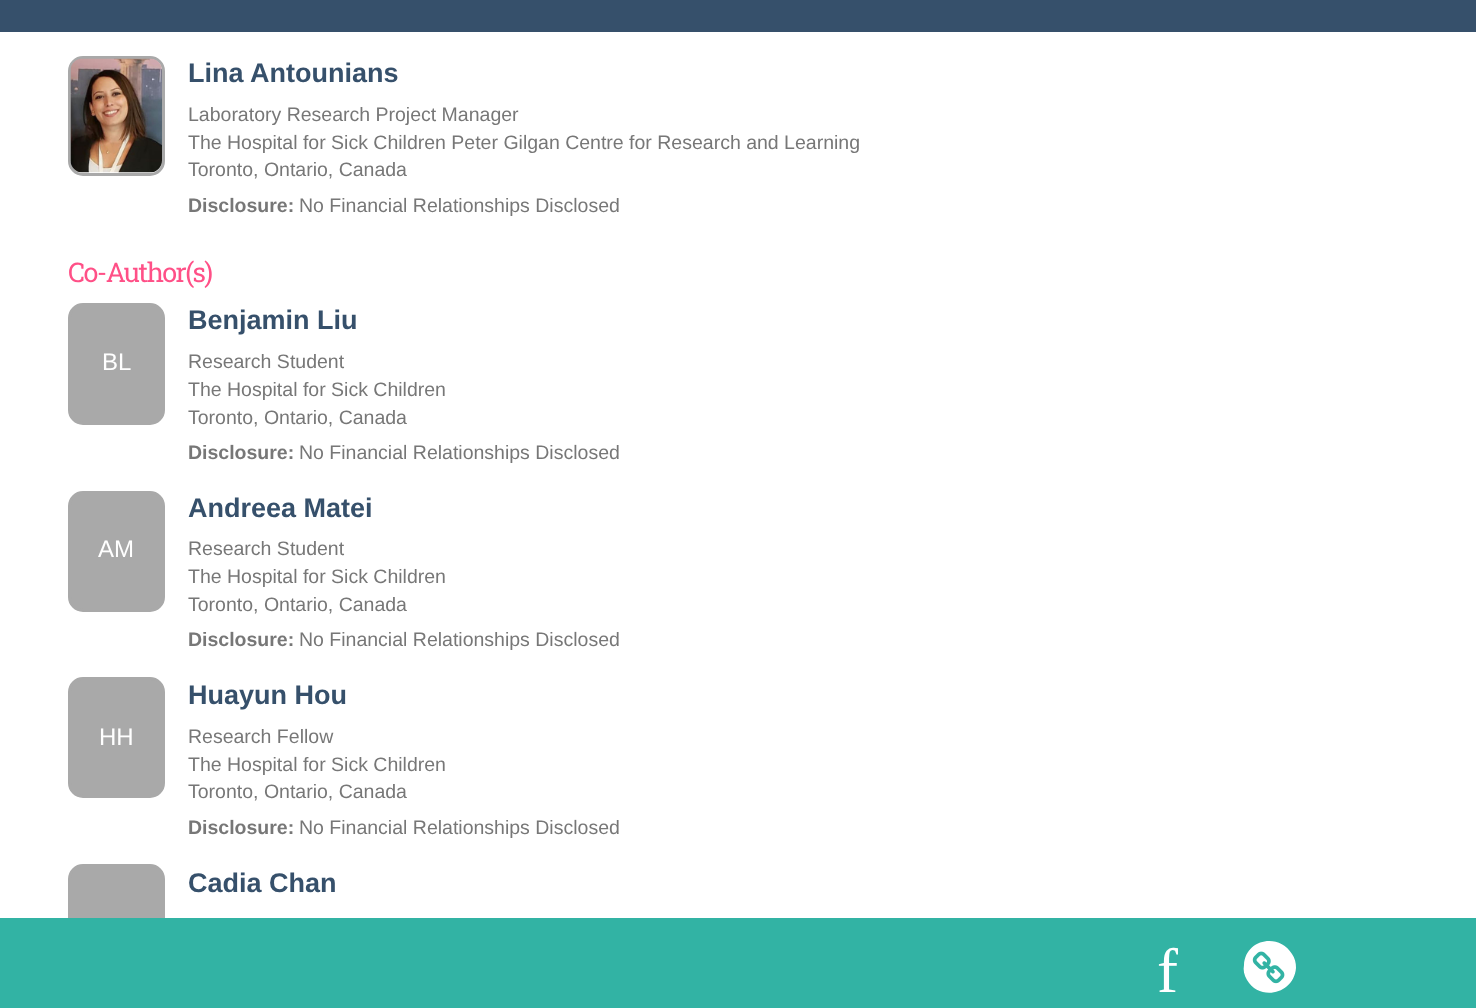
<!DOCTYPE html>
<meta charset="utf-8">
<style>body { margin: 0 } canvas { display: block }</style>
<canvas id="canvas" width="1476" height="1008"></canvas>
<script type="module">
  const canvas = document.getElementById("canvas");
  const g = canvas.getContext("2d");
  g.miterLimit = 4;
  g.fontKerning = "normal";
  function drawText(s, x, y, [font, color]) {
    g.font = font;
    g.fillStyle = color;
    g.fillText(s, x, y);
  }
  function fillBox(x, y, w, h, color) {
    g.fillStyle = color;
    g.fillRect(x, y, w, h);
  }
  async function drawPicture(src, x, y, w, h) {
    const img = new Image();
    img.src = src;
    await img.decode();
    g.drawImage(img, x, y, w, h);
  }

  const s1 = ["bold 27px Liberation Sans", "#36506B"];
  const s2 = ["19.5px Liberation Sans", "#777777"];
  const s3 = ["bold 19.5px Liberation Sans", "#777777"];
  const s4 = ["27px Roboto Slab", "#FF5087"];
  const s5 = ["24px Liberation Sans", "#FFFFFF"];
  const s6 = ["63px Liberation Serif", "#FFFFFF"];

  fillBox(0, 0, 1476, 1008, "#FFFFFF");
  fillBox(0, 0, 1476, 32, "#36506B");
  g.beginPath();
  g.roundRect(69.5, 57.5, 94, 117, 13.5);
  g.strokeStyle = "#A9A9A9";
  g.lineWidth = 3;
  g.stroke();
  await drawPicture("pic1.png", 70, 58, 92, 115);
  drawText("Lina Antounians", 188, 82, s1);
  drawText("Laboratory Research Project Manager", 188, 121, s2);
  drawText("The Hospital for Sick Children Peter Gilgan Centre for Research and Learning", 188, 149, s2);
  drawText("Toronto, Ontario, Canada", 188, 176, s2);
  drawText("Disclosure:", 188, 212, s3);
  drawText("No Financial Relationships Disclosed", 299, 212, s2);
  g.letterSpacing = "-1.5px";
  drawText("Co-Author(s)", 68, 282, s4);
  g.fillStyle = "#A9A9A9";
  g.beginPath();
  g.roundRect(69.5, 304.5, 94, 119, 13.5);
  g.fill();
  g.stroke();
  g.letterSpacing = "0px";
  drawText("BL", 102, 370, s5);
  drawText("Benjamin Liu", 188, 329, s1);
  drawText("Research Student", 188, 368, s2);
  drawText("The Hospital for Sick Children", 188, 396, s2);
  drawText("Toronto, Ontario, Canada", 188, 424, s2);
  drawText("Disclosure:", 188, 459, s3);
  drawText("No Financial Relationships Disclosed", 299, 459, s2);
  g.fillStyle = "#A9A9A9";
  g.beginPath();
  g.roundRect(69.5, 492.5, 94, 118, 13.5);
  g.fill();
  g.stroke();
  drawText("AM", 98, 557, s5);
  drawText("Andreea Matei", 188, 517, s1);
  drawText("Research Student", 188, 555, s2);
  drawText("The Hospital for Sick Children", 188, 583, s2);
  drawText("Toronto, Ontario, Canada", 188, 611, s2);
  drawText("Disclosure:", 188, 646, s3);
  drawText("No Financial Relationships Disclosed", 299, 646, s2);
  g.fillStyle = "#A9A9A9";
  g.beginPath();
  g.roundRect(69.5, 678.5, 94, 118, 13.5);
  g.fill();
  g.stroke();
  drawText("HH", 99, 745, s5);
  drawText("Huayun Hou", 188, 704, s1);
  drawText("Research Fellow", 188, 743, s2);
  drawText("The Hospital for Sick Children", 188, 771, s2);
  drawText("Toronto, Ontario, Canada", 188, 798, s2);
  drawText("Disclosure:", 188, 834, s3);
  drawText("No Financial Relationships Disclosed", 299, 834, s2);
  g.fillStyle = "#A9A9A9";
  g.beginPath();
  g.roundRect(69.5, 865.5, 94, 119, 13.5);
  g.fill();
  g.stroke();
  drawText("Cadia Chan", 188, 892, s1);
  fillBox(0, 918, 1476, 90, "#32B3A4");
  drawText("f", 1157, 992, s6);
  g.beginPath();
  g.moveTo(1292, 954);
  g.bezierCurveTo(1295, 958, 1296, 963, 1296, 968);
  g.bezierCurveTo(1294, 994, 1260, 1002, 1247, 980);
  g.bezierCurveTo(1244, 975, 1243, 970, 1244, 965);
  g.bezierCurveTo(1245, 939, 1279, 932, 1292, 954);
  g.closePath();
  g.fill();
  await drawPicture("pic2.png", 1252, 951, 33, 33);
</script>
